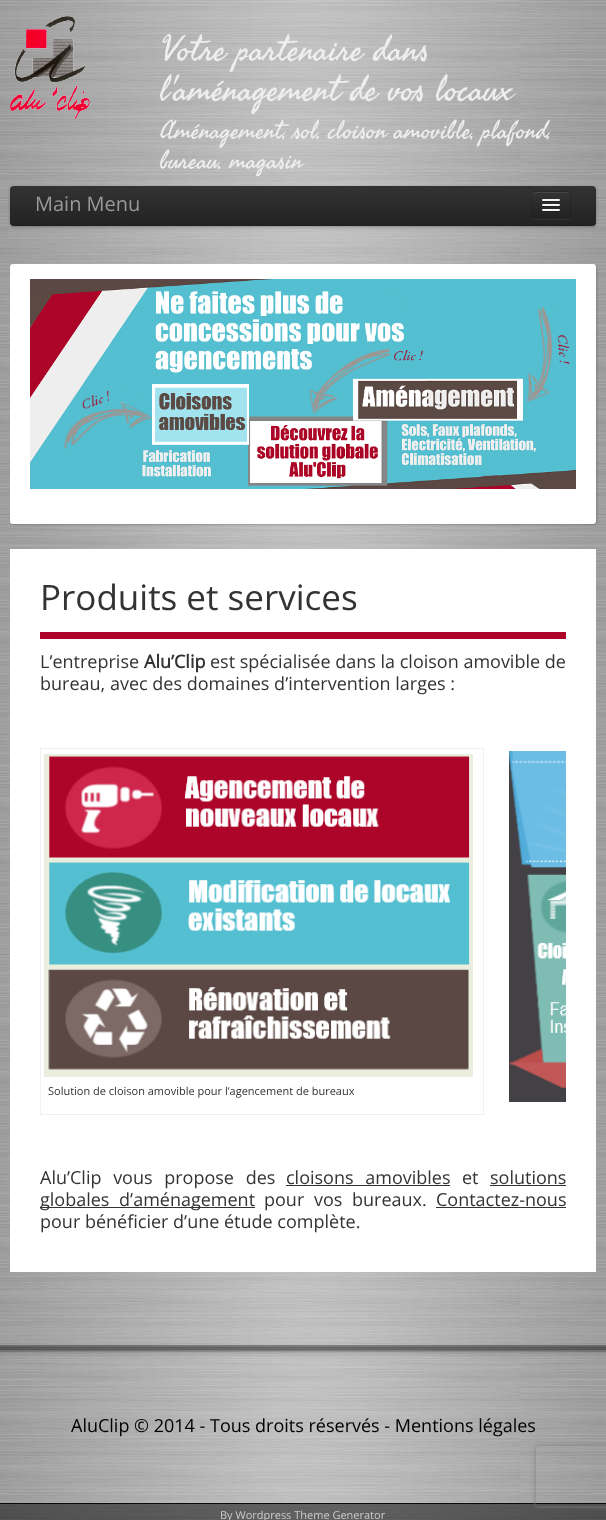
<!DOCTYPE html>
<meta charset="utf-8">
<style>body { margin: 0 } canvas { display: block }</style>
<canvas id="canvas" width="606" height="1520"></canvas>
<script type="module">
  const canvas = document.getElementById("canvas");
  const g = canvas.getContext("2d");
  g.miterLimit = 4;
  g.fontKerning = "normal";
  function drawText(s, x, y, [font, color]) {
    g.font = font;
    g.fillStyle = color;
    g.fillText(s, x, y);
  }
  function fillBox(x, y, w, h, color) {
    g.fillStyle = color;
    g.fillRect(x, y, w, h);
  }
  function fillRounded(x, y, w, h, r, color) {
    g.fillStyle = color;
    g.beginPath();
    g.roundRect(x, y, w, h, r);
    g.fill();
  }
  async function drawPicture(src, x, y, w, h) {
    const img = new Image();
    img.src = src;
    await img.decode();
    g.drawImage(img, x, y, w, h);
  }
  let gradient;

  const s1 = ["35px Seaweed Script", "#EEEEEE"];
  const s2 = ["25px Seaweed Script", "#EEEEEE"];
  const s3 = ["20px Open Sans", "#999999"];
  const s4 = ["35px Open Sans", "#333333"];
  const s5 = ["18px Open Sans", "#333333"];
  const s6 = ["bold 18px Open Sans", "#333333"];
  const s7 = ["11px Open Sans", "#333333"];
  const s8 = ["18px Open Sans", "#000000"];
  const s9 = ["11px Open Sans", "#CCCCCC"];

  fillBox(0, 0, 606, 1520, "#FFFFFF");
  await drawPicture("pic1.png", 0, 0, 606, 1520);
  await drawPicture("pic2.png", 10, 16, 80, 104);
  drawText("Votre partenaire dans", 160, 60, s1);
  drawText("l'aménagement de vos locaux", 160, 100, s1);
  drawText("Aménagement, sol, cloison amovible, plafond,", 160, 138, s2);
  g.save();
  g.beginPath();
  g.rect(10, 6, 586, 170);
  g.clip();
  drawText("bureau, magasin", 160, 168, s2);
  g.restore();
  g.fillStyle = "rgba(0, 0, 0, 0.25)";
  g.filter = "blur(1.5px)";
  g.beginPath();
  g.roundRect(10, 187, 586, 40, 4);
  g.fill();
  g.filter = "none";
  gradient = g.createLinearGradient(303, 186, 303, 226);
  gradient.addColorStop(0, "#333333");
  gradient.addColorStop(1, "#222222");
  g.fillStyle = gradient;
  g.beginPath();
  g.roundRect(10, 186, 586, 40, 4);
  g.fill();
  g.fillStyle = "rgba(0, 0, 0, 0.1)";
  g.beginPath();
  g.moveTo(10, 221);
  g.lineTo(10, 222);
  g.bezierCurveTo(10, 224, 12, 226, 14, 226);
  g.lineTo(592, 226);
  g.bezierCurveTo(594, 226, 596, 224, 596, 222);
  g.lineTo(596, 221);
  g.bezierCurveTo(596, 223, 594, 225, 592, 225);
  g.lineTo(14, 225);
  g.bezierCurveTo(12, 225, 10, 223, 10, 221);
  g.closePath();
  g.fill();
  drawText("Main Menu", 35, 211, s3);
  g.fillStyle = "#353535";
  g.beginPath();
  g.moveTo(531, 215);
  g.bezierCurveTo(531, 221, 536, 220, 540, 220);
  g.lineTo(562, 220);
  g.bezierCurveTo(566, 220, 571, 221, 571, 215);
  g.bezierCurveTo(571, 217, 569, 219, 567, 219);
  g.lineTo(535, 219);
  g.bezierCurveTo(533, 219, 531, 217, 531, 215);
  g.closePath();
  g.fill();
  fillRounded(531, 191, 40, 28, 4, "#2C2C2C");
  g.save();
  g.beginPath();
  g.roundRect(531, 191, 40, 28, 4);
  g.clip();
  gradient = g.createLinearGradient(551, 192, 551, 218);
  gradient.addColorStop(0, "#333333");
  gradient.addColorStop(1, "#222222");
  g.fillStyle = gradient;
  g.fillRect(531, 192, 40, 26);
  g.restore();
  g.fillStyle = "#474747";
  g.beginPath();
  g.moveTo(535, 193);
  g.lineTo(567, 193);
  g.bezierCurveTo(569, 193, 570, 194, 570, 196);
  g.bezierCurveTo(570, 191, 566, 192, 561.5, 192);
  g.lineTo(540.5, 192);
  g.bezierCurveTo(536, 192, 532, 191, 532, 196);
  g.bezierCurveTo(532, 194, 533, 193, 535, 193);
  g.closePath();
  g.fill();
  g.beginPath();
  g.moveTo(569.5, 217.5);
  g.bezierCurveTo(569, 218, 568, 218.5, 567, 218.5);
  g.lineTo(535, 218.5);
  g.bezierCurveTo(534, 218.5, 533, 218, 532.5, 217.5);
  g.strokeStyle = "#212121";
  g.stroke();
  g.beginPath();
  g.moveTo(532.5, 217.5);
  g.bezierCurveTo(532, 217, 531.5, 216, 531.5, 215);
  g.lineTo(531.5, 195);
  g.bezierCurveTo(531.5, 194, 532, 193, 532.5, 192.5);
  g.bezierCurveTo(533, 192, 534, 191.5, 535, 191.5);
  g.lineTo(567, 191.5);
  g.bezierCurveTo(568, 191.5, 569, 192, 569.5, 192.5);
  g.bezierCurveTo(570, 193, 570.5, 194, 570.5, 195);
  g.lineTo(570.5, 215);
  g.bezierCurveTo(570.5, 216, 570, 217, 569.5, 217.5);
  g.strokeStyle = "rgba(0, 0, 0, 0.1)";
  g.stroke();
  g.fillStyle = "#222222";
  g.beginPath();
  g.moveTo(542, 200.5);
  g.bezierCurveTo(541, 202.5, 545.5, 202, 545.5, 202);
  g.lineTo(556.5, 202);
  g.bezierCurveTo(556.5, 202, 561, 202.5, 560, 200.5);
  g.bezierCurveTo(559, 201.5, 552.5, 201, 551, 201);
  g.bezierCurveTo(549.5, 201, 543, 201.5, 542, 200.5);
  g.closePath();
  g.fill();
  fillRounded(542, 199, 18, 2, 1, "#F5F5F5");
  g.fillStyle = "#202020";
  g.beginPath();
  g.moveTo(542, 205.5);
  g.bezierCurveTo(541, 207.5, 545.5, 207, 545.5, 207);
  g.lineTo(556.5, 207);
  g.bezierCurveTo(556.5, 207, 561, 207.5, 560, 205.5);
  g.bezierCurveTo(559, 206.5, 552.5, 206, 551, 206);
  g.bezierCurveTo(549.5, 206, 543, 206.5, 542, 205.5);
  g.closePath();
  g.fill();
  fillRounded(542, 204, 18, 2, 1, "#F5F5F5");
  g.fillStyle = "#1D1D1D";
  g.beginPath();
  g.moveTo(542, 210.5);
  g.bezierCurveTo(541, 212.5, 545.5, 212, 545.5, 212);
  g.lineTo(556.5, 212);
  g.bezierCurveTo(556.5, 212, 561, 212.5, 560, 210.5);
  g.bezierCurveTo(559, 211.5, 552.5, 211, 551, 211);
  g.bezierCurveTo(549.5, 211, 543, 211.5, 542, 210.5);
  g.closePath();
  g.fill();
  fillRounded(542, 209, 18, 2, 1, "#F5F5F5");
  await drawPicture("pic3.png", 0, 249, 606, 1098);
  g.fillStyle = "rgba(0, 0, 0, 0.2)";
  g.filter = "blur(1px)";
  g.beginPath();
  g.roundRect(11, 265, 586, 260, 3);
  g.fill();
  g.filter = "none";
  fillRounded(10, 264, 586, 260, 3, "#FFFFFF");
  await drawPicture("pic4.png", 30, 279, 546, 210);
  fillBox(30, 549, 546, 723, "#FFFFFF");
  fillBox(10, 549, 20, 723, "#FFFFFF");
  drawText("Produits et services", 40, 610, s4);
  fillBox(40, 632, 526, 7, "#AD0529");
  drawText("L’entreprise", 40, 668, s5);
  drawText("Alu’Clip", 144, 668, s6);
  drawText("est spécialisée dans la cloison amovible de", 210, 668, s5);
  drawText("bureau, avec des domaines d’intervention larges :", 40, 690, s5);
  g.strokeStyle = "#F0F0F0";
  g.strokeRect(40.5, 748.5, 443, 366);
  await drawPicture("pic5.png", 44, 754, 429, 323);
  drawText("Solution de cloison amovible pour l’agencement de bureaux", 48, 1095, s7);
  await drawPicture("pic6.png", 509, 751, 57, 351);
  g.wordSpacing = "7px";
  drawText("Alu’Clip vous propose des", 40, 1184, s5);
  drawText("cloisons amovibles", 286, 1184, s5);
  fillBox(286, 1185, 164, 1, "#333333");
  g.wordSpacing = "0px";
  drawText("et", 462, 1184, s5);
  drawText("solutions", 490, 1184, s5);
  fillBox(490, 1185, 76, 1, "#333333");
  fillBox(40, 1207, 215, 1, "#333333");
  g.wordSpacing = "5px";
  drawText("globales d’aménagement", 40, 1206, s5);
  drawText("pour vos bureaux.", 264, 1206, s5);
  g.wordSpacing = "0px";
  drawText("Contactez-nous", 436, 1206, s5);
  fillBox(436, 1207, 130, 1, "#333333");
  drawText("pour bénéficier d’une étude complète.", 40, 1228, s5);
  fillBox(576, 549, 20, 723, "#FFFFFF");
  await drawPicture("pic7.png", 0, 1345, 606, 7);
  await drawPicture("pic8.png", 0, 1347, 606, 9);
  drawText("AluClip © 2014 - Tous droits réservés - Mentions légales", 71, 1432, s8);
  fillBox(0, 1503, 606, 17, "rgba(0, 0, 0, 0.5)");
  fillBox(0, 1503, 606, 1, "rgba(0, 0, 0, 0.9)");
  drawText("By Wordpress Theme Generator", 220, 1519, s9);
  g.save();
  g.beginPath();
  g.moveTo(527, 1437);
  g.lineTo(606, 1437);
  g.lineTo(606, 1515);
  g.lineTo(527, 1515);
  g.closePath();
  g.moveTo(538, 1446);
  g.lineTo(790, 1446);
  g.bezierCurveTo(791, 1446, 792, 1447, 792, 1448);
  g.lineTo(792, 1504);
  g.bezierCurveTo(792, 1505, 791, 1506, 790, 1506);
  g.lineTo(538, 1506);
  g.bezierCurveTo(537, 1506, 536, 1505, 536, 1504);
  g.lineTo(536, 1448);
  g.bezierCurveTo(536, 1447, 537, 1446, 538, 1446);
  g.closePath();
  g.clip("evenodd");
  g.fillStyle = "#808080";
  g.filter = "blur(2.5px)";
  g.beginPath();
  g.roundRect(536, 1446, 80, 60, 2);
  g.fill();
  g.filter = "none";
  g.restore();
</script>
